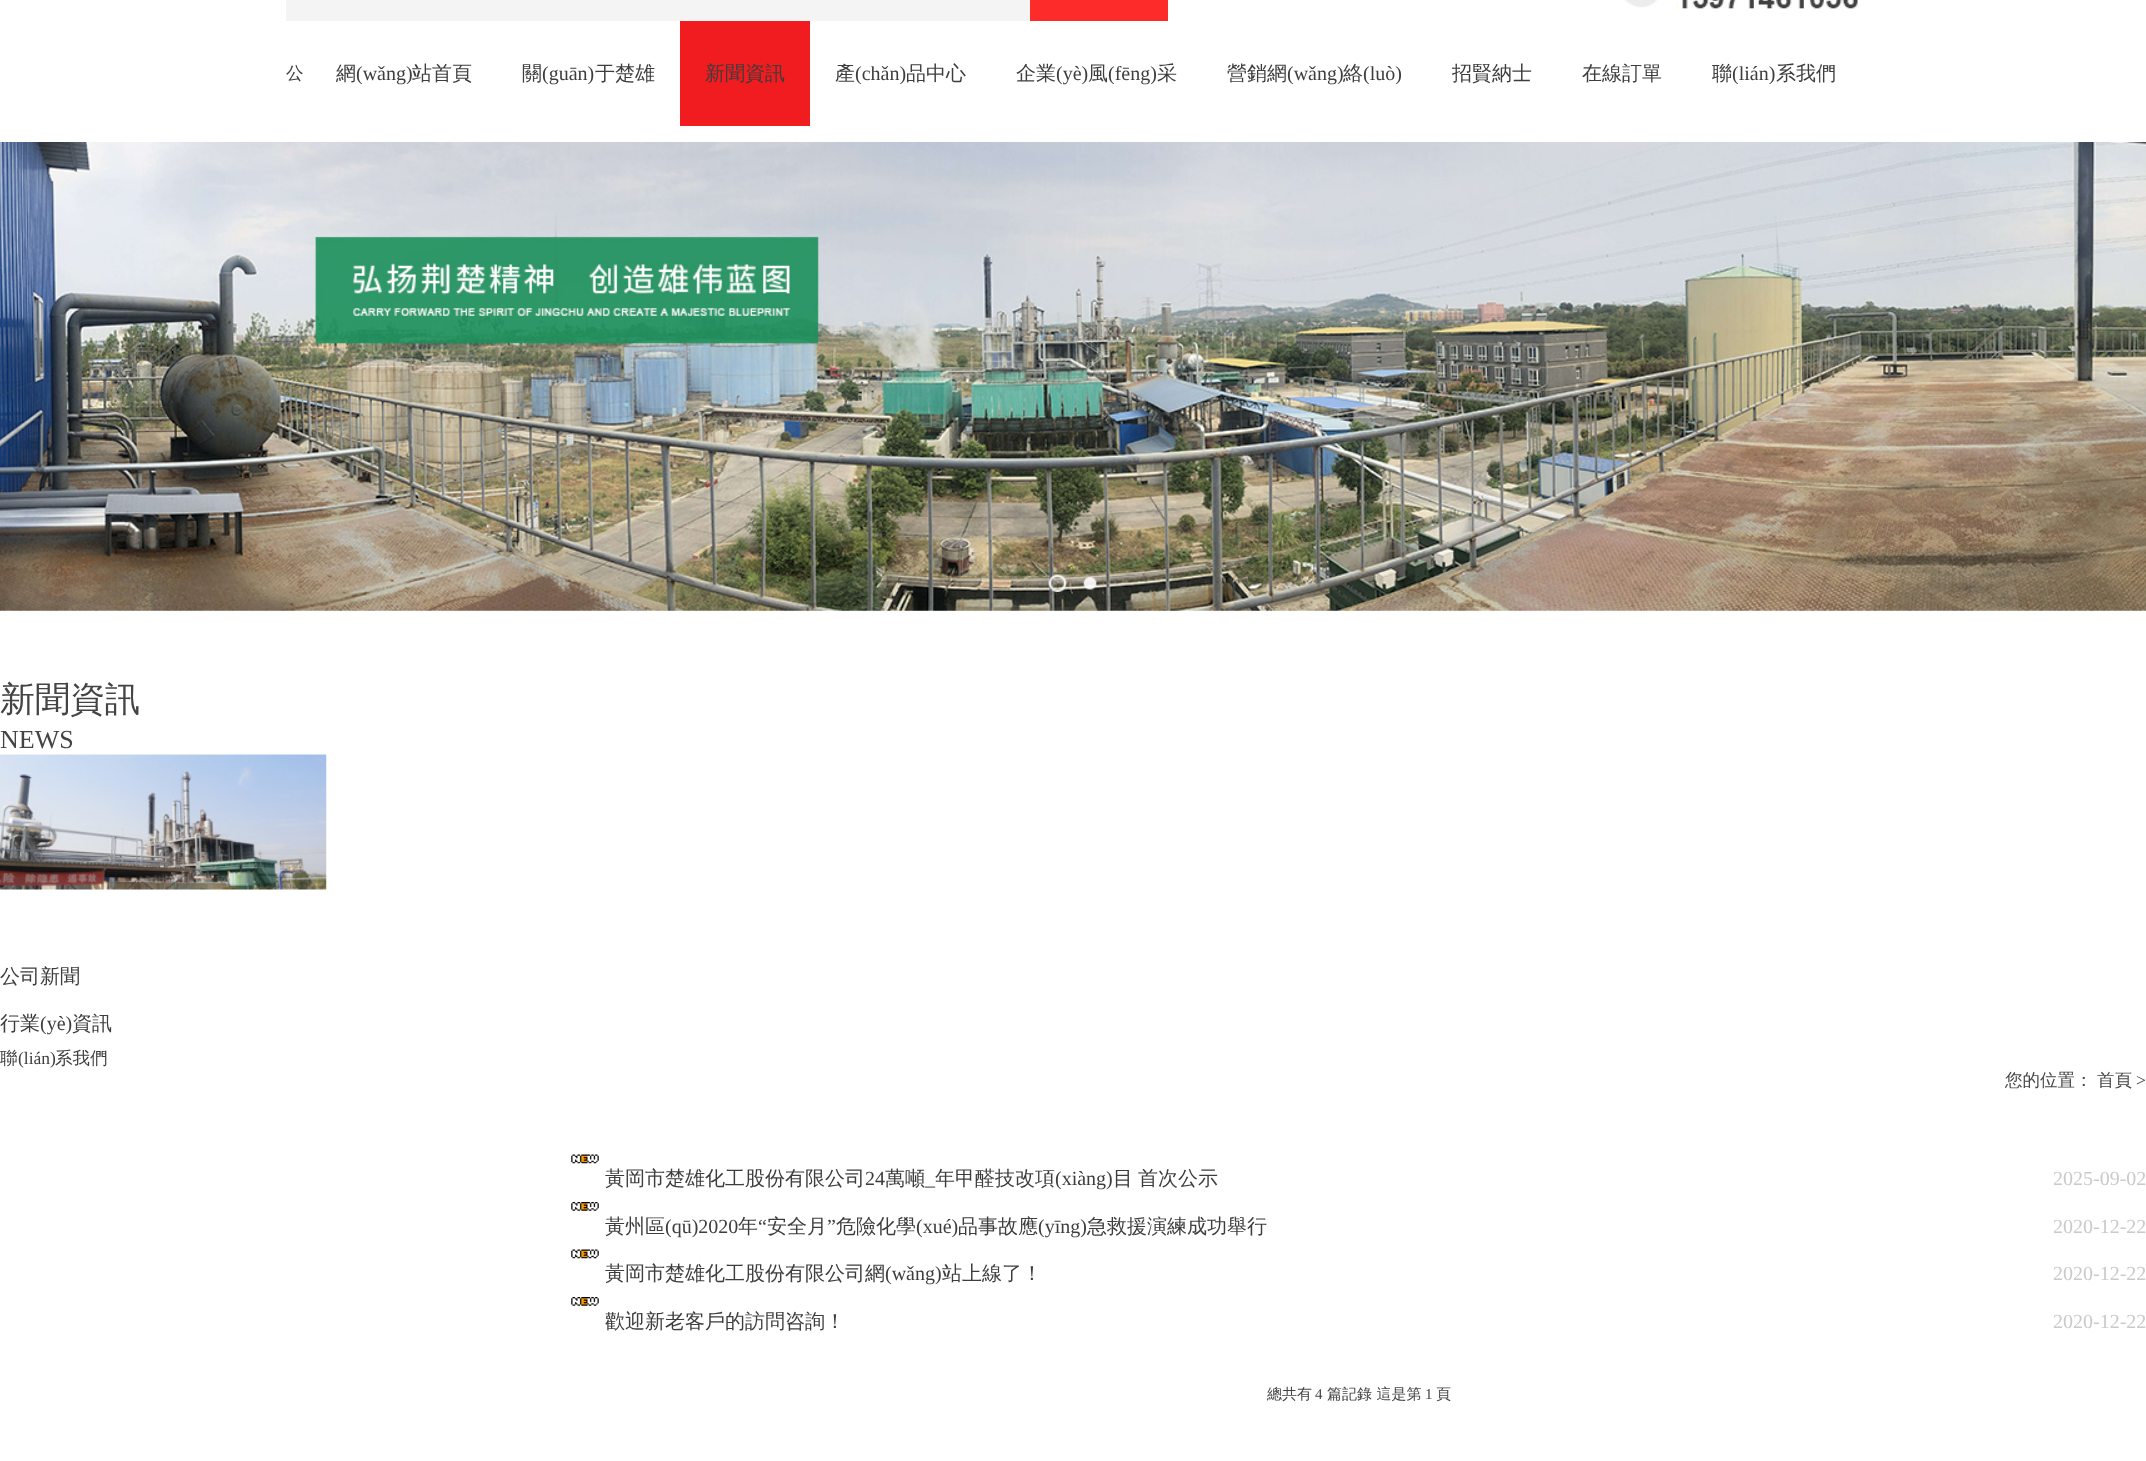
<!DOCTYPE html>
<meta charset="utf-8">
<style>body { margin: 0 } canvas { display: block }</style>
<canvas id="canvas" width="2146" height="1461"></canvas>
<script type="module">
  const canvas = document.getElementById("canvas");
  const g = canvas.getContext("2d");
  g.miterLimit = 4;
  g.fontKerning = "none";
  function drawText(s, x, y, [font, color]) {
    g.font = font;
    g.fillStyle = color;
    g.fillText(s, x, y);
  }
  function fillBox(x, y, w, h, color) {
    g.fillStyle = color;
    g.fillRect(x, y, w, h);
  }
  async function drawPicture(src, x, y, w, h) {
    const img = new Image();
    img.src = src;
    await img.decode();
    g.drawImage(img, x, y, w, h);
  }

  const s1 = ["500 17.5px WenQuanYi Zen Hei", "#3D3D3D"];
  const s2 = ["500 20px WenQuanYi Zen Hei", "#3D3D3D"];
  const s3 = ["20px Liberation Serif", "#3D3D3D"];
  const s4 = ["500 35px WenQuanYi Zen Hei", "#444444"];
  const s5 = ["26px Liberation Serif", "#444444"];
  const s6 = ["17.5px Liberation Serif", "#3D3D3D"];
  const s7 = ["500 17.5px WenQuanYi Zen Hei", "#444444"];
  const s8 = ["17.5px Liberation Serif", "#444444"];
  const s9 = ["20px Liberation Serif", "#CACACA"];
  const s10 = ["500 15px WenQuanYi Zen Hei", "#444444"];
  const s11 = ["15px Liberation Serif", "#444444"];

  fillBox(0, 0, 2146, 1461, "#FFFFFF");
  fillBox(286, 0, 744, 21, "#F4F4F4");
  fillBox(1030, 0, 138, 21, "#FD2B29");
  await drawPicture("pic1.png", 1625, 0, 233, 10);
  drawText("公", 286, 79, s1);
  drawText("網", 336, 80, s2);
  drawText("(wǎng)", 356, 80, s3);
  drawText("站首頁", 412, 80, s2);
  drawText("關", 522, 80, s2);
  drawText("(guān)", 542, 80, s3);
  drawText("于楚雄", 595, 80, s2);
  fillBox(680, 21, 130, 105, "#F11C1F");
  drawText("新聞資訊", 705, 80, s2);
  drawText("產", 835, 80, s2);
  drawText("(chǎn)", 855, 80, s3);
  drawText("品中心", 906, 80, s2);
  drawText("企業", 1016, 80, s2);
  drawText("(yè)", 1056, 80, s3);
  drawText("風", 1088, 80, s2);
  drawText("(fēng)", 1108, 80, s3);
  drawText("采", 1157, 80, s2);
  drawText("營銷網", 1227, 80, s2);
  drawText("(wǎng)", 1287, 80, s3);
  drawText("絡", 1343, 80, s2);
  drawText("(luò)", 1363, 80, s3);
  drawText("招賢納士", 1452, 80, s2);
  drawText("在線訂單", 1582, 80, s2);
  drawText("聯", 1712, 80, s2);
  drawText("(lián)", 1732, 80, s3);
  drawText("系我們", 1776, 80, s2);
  await drawPicture("pic2.png", 0, 142, 2146, 469);
  await drawPicture("pic3.png", 1048, 574, 19, 18);
  await drawPicture("pic4.png", 1083, 576, 14, 14);
  drawText("新聞資訊", 0, 711, s4);
  drawText("NEWS", 0, 748, s5);
  await drawPicture("pic5.png", 0, 754, 327, 136);
  drawText("公司新聞", 0, 983, s2);
  drawText("行業", 0, 1030, s2);
  drawText("(yè)", 40, 1030, s3);
  drawText("資訊", 72, 1030, s2);
  drawText("聯", 0, 1064, s1);
  drawText("(lián)", 18, 1064, s6);
  drawText("系我們", 55, 1064, s1);
  drawText("您的位置：", 2005, 1086, s7);
  drawText("首頁", 2097, 1086, s7);
  drawText(">", 2136, 1086, s8);
  await drawPicture("pic6.png", 571, 1154, 28, 10);
  drawText("黃岡市楚雄化工股份有限公司", 605, 1185, s2);
  drawText("24", 865, 1185, s3);
  drawText("萬噸", 885, 1185, s2);
  drawText("_", 925, 1185, s3);
  drawText("年甲醛技改項", 935, 1185, s2);
  drawText("(xiàng)", 1055, 1185, s3);
  g.wordSpacing = "-1px";
  drawText("目 首次公示", 1113, 1185, s2);
  g.wordSpacing = "0px";
  drawText("2025-09-02", 2053, 1185, s9);
  await drawPicture("pic7.png", 571, 1202, 28, 9);
  drawText("黃州區", 605, 1233, s2);
  drawText("(qū)2020", 665, 1233, s3);
  drawText("年", 738, 1233, s2);
  drawText("“", 758, 1233, s3);
  drawText("安全月", 767, 1233, s2);
  drawText("”", 827, 1233, s3);
  drawText("危險化學", 836, 1233, s2);
  drawText("(xué)", 916, 1233, s3);
  drawText("品事故應", 958, 1233, s2);
  drawText("(yīng)", 1038, 1233, s3);
  drawText("急救援演練成功舉行", 1087, 1233, s2);
  drawText("2020-12-22", 2053, 1233, s9);
  await drawPicture("pic6.png", 571, 1249, 28, 10);
  drawText("黃岡市楚雄化工股份有限公司網", 605, 1280, s2);
  drawText("(wǎng)", 885, 1280, s3);
  drawText("站上線了！", 942, 1280, s2);
  drawText("2020-12-22", 2053, 1280, s9);
  await drawPicture("pic7.png", 571, 1297, 28, 9);
  drawText("歡迎新老客戶的訪問咨詢！", 605, 1328, s2);
  drawText("2020-12-22", 2053, 1328, s9);
  drawText("總共有", 1267, 1399, s10);
  drawText("4", 1315, 1399, s11);
  drawText("篇記錄 這是第", 1327, 1399, s10);
  drawText("1", 1425, 1399, s11);
  drawText("頁", 1436, 1399, s10);
</script>
